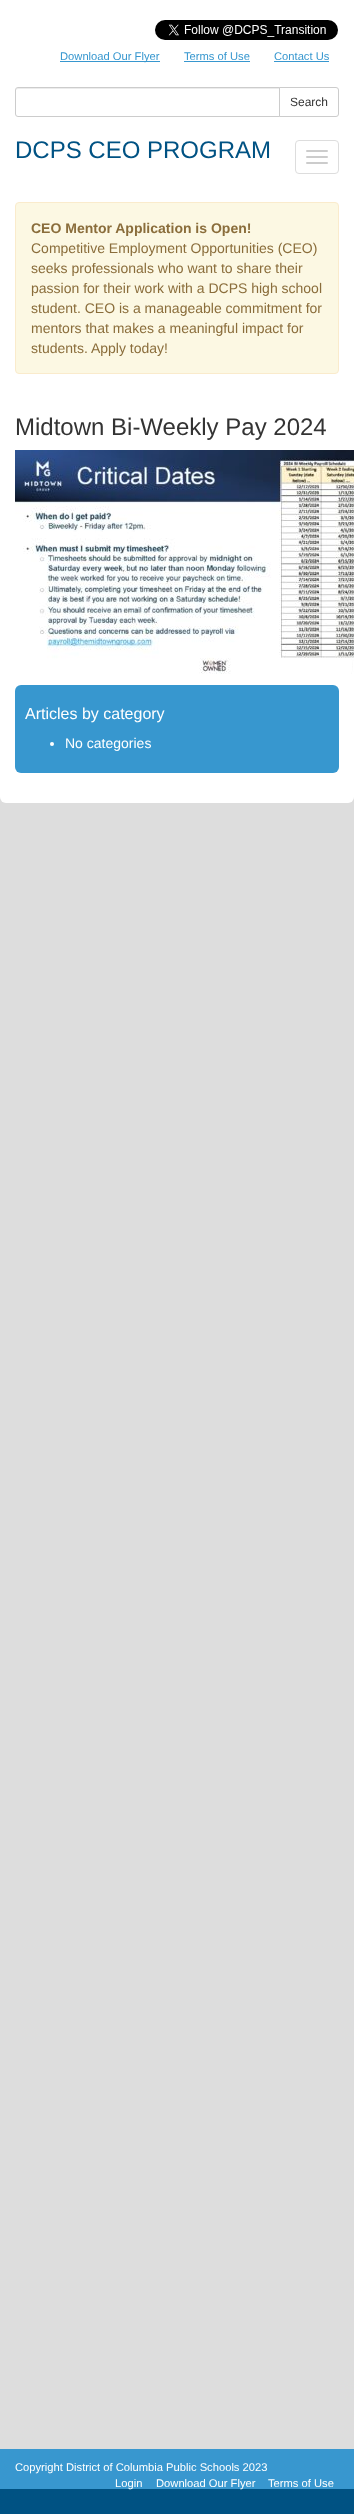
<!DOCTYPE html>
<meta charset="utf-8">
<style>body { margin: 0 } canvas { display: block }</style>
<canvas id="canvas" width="354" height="2514"></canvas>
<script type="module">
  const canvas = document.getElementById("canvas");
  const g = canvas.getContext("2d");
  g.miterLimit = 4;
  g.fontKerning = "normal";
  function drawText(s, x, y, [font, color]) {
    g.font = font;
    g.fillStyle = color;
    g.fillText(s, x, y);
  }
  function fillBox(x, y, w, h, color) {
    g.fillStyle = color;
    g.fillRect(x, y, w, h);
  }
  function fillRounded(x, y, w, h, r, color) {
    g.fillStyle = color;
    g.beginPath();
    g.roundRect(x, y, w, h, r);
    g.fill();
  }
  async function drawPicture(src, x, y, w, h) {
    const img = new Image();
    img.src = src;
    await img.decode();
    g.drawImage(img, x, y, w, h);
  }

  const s1 = ["11.2px Liberation Sans", "#3797CF"];
  const s2 = ["12px Liberation Sans", "#333333"];
  const s3 = ["24px Liberation Sans", "#005283"];
  const s4 = ["bold 14px Liberation Sans", "#8A6D3B"];
  const s5 = ["14px Liberation Sans", "#8A6D3B"];
  const s6 = ["24px Liberation Sans", "#333333"];
  const s7 = ["16px Liberation Sans", "#FFFFFF"];
  const s8 = ["14px Liberation Sans", "#FFFFFF"];
  const s9 = ["11.2px Liberation Sans", "#FFFFFF"];

  fillBox(0, 0, 354, 2514, "#DDDDDD");
  g.fillStyle = "#FFFFFF";
  g.beginPath();
  g.roundRect(0, 0, 354, 803, [0, 0, 6, 6]);
  g.fill();
  await drawPicture("pic1.png", 155, 20, 183, 20);
  fillBox(60, 61, 100, 1, "#3797CF");
  drawText("Download Our Flyer", 60, 60, s1);
  drawText("Terms of Use", 184, 60, s1);
  fillBox(184, 61, 66, 1, "#3797CF");
  drawText("Contact Us", 274, 60, s1);
  fillBox(274, 61, 55, 1, "#3797CF");
  g.fillStyle = "#ECECEC";
  g.beginPath();
  g.moveTo(18, 89);
  g.lineTo(279, 89);
  g.lineTo(279, 88);
  g.lineTo(18, 88);
  g.bezierCurveTo(17, 88, 16, 89, 16, 90);
  g.bezierCurveTo(16, 90, 17, 89, 18, 89);
  g.closePath();
  g.moveTo(16, 115);
  g.lineTo(16, 114);
  g.closePath();
  g.fill("evenodd");
  g.beginPath();
  g.roundRect(15.5, 87.5, 264, 29, [2.5, 0, 0, 2.5]);
  g.strokeStyle = "#CCCCCC";
  g.stroke();
  g.fillStyle = "#FFFFFF";
  g.beginPath();
  g.roundRect(279.5, 87.5, 59, 29, [0, 2.5, 2.5, 0]);
  g.fill();
  g.stroke();
  drawText("Search", 290, 106, s2);
  drawText("DCPS CEO PROGRAM", 15, 158, s3);
  g.beginPath();
  g.roundRect(295.5, 140.5, 43, 33, 3.5);
  g.strokeStyle = "#DDDDDD";
  g.stroke();
  fillRounded(306, 150, 22, 2, 1, "#CCCCCC");
  fillRounded(306, 156, 22, 2, 1, "#CCCCCC");
  fillRounded(306, 162, 22, 2, 1, "#CCCCCC");
  g.fillStyle = "#FCF8E3";
  g.beginPath();
  g.roundRect(15.5, 202.5, 323, 171, 3.5);
  g.fill();
  g.strokeStyle = "#FAEBCC";
  g.stroke();
  drawText("CEO Mentor Application is Open!", 31, 233, s4);
  drawText("Competitive Employment Opportunities (CEO)", 31, 253, s5);
  drawText("seeks professionals who want to share their", 31, 273, s5);
  drawText("passion for their work with a DCPS high school", 31, 293, s5);
  drawText("student. CEO is a manageable commitment for", 31, 313, s5);
  drawText("mentors that makes a meaningful impact for", 31, 333, s5);
  drawText("students. Apply today!", 31, 353, s5);
  drawText("Midtown Bi-Weekly Pay 2024", 15, 435, s6);
  await drawPicture("pic2.png", 15, 450, 339, 224);
  fillRounded(15, 685, 324, 88, 6, "#3797CF");
  drawText("Articles by category", 25, 719, s7);
  g.beginPath();
  g.arc(52, 744, 2, 0, Math.PI * 2);
  g.fill();
  drawText("No categories", 65, 748, s8);
  fillBox(0, 2449, 354, 40, "#3897CF");
  fillBox(0, 2489, 354, 25, "#005283");
  drawText("Copyright District of Columbia Public Schools 2023", 15, 2471, s9);
  drawText("Login", 115, 2487, s9);
  drawText("Download Our Flyer", 156, 2487, s9);
  drawText("Terms of Use", 268, 2487, s9);
</script>
